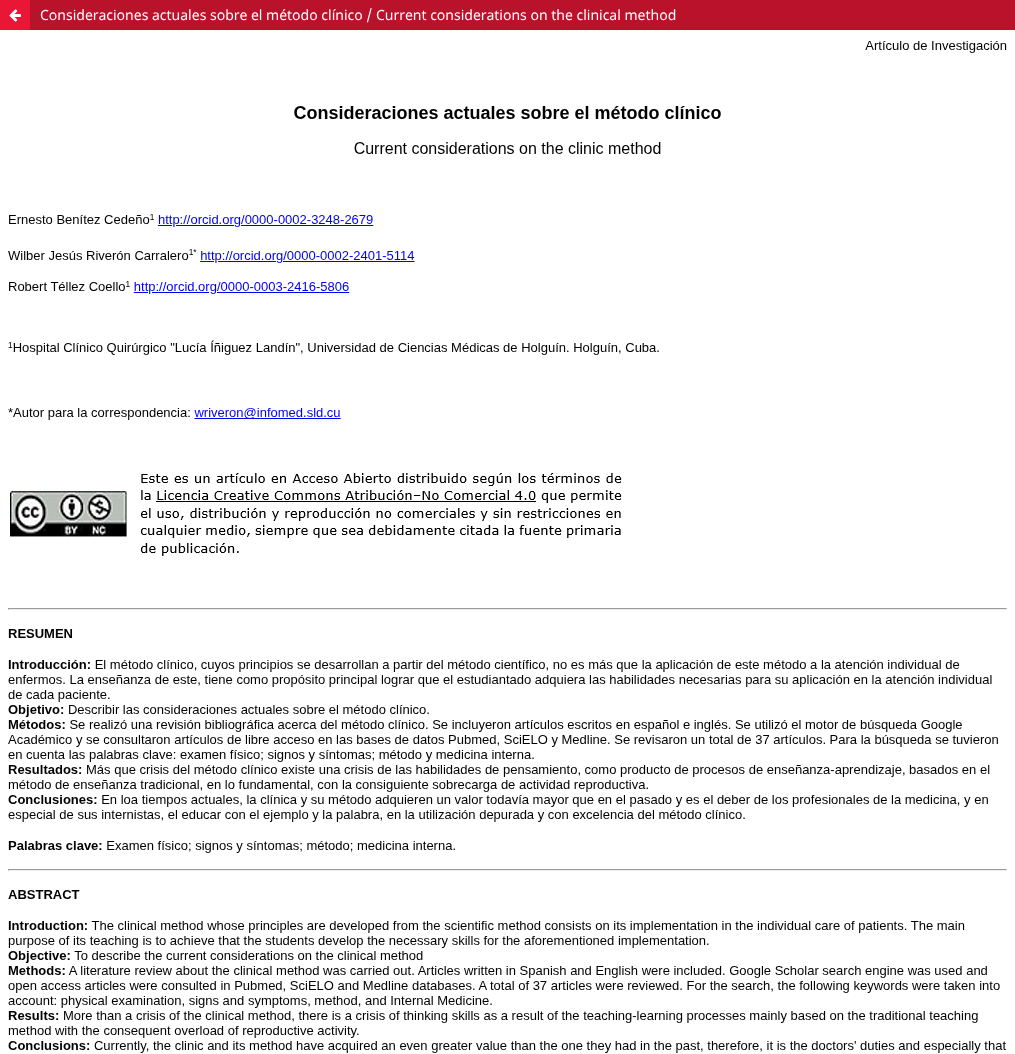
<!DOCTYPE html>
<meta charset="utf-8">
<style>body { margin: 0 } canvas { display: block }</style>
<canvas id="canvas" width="1015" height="1054"></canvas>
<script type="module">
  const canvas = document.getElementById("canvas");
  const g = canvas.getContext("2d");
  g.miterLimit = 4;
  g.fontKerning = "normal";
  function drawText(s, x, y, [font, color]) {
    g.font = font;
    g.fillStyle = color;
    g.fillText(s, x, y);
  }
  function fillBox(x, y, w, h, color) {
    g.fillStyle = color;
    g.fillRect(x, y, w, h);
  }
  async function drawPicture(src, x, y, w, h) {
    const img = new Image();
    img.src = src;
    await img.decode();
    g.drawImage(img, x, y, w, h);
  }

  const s1 = ["14px Noto Sans", "#FFFFFF"];

  fillBox(0, 0, 1015, 1054, "#FFFFFF");
  fillBox(30, 0, 985, 30, "#BA122B");
  fillBox(0, 0, 30, 30, "#E91636");
  await drawPicture("pic1.png", 9, 9, 12, 13);
  drawText("Consideraciones actuales sobre el método clínico / Current considerations on the clinical method", 40, 20, s1);
  await drawPicture("pic2.png", 8, 41, 999, 1012);
</script>
